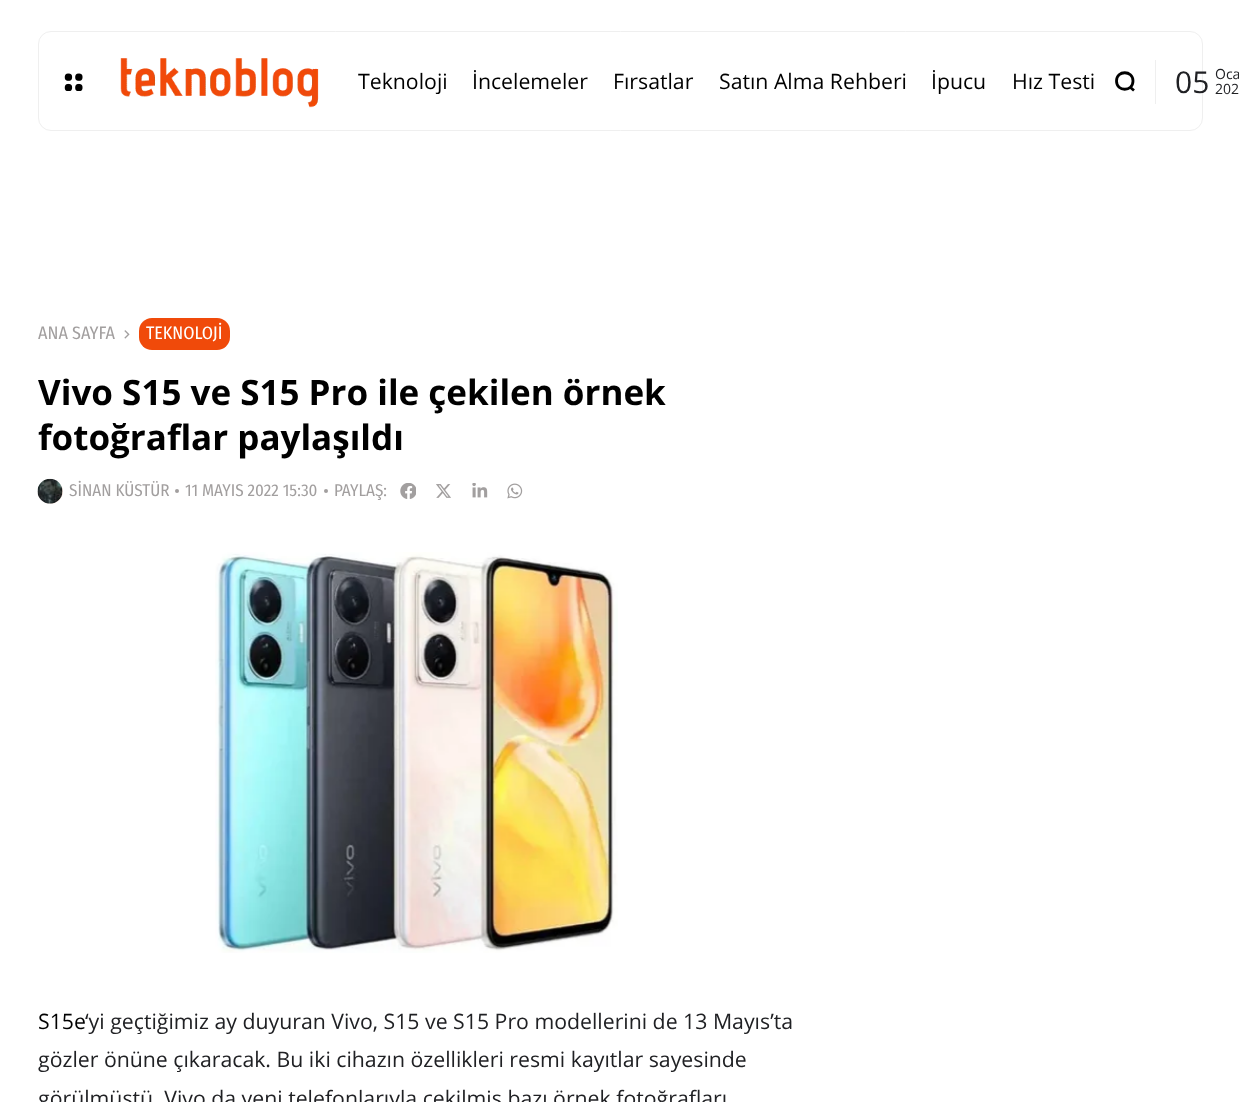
<!DOCTYPE html>
<meta charset="utf-8">
<style>body { margin: 0 } canvas { display: block }</style>
<canvas id="canvas" width="1239" height="1102"></canvas>
<script type="module">
  const canvas = document.getElementById("canvas");
  const g = canvas.getContext("2d");
  g.miterLimit = 4;
  g.fontKerning = "normal";
  function drawText(s, x, y, [font, color]) {
    g.font = font;
    g.fillStyle = color;
    g.fillText(s, x, y);
  }
  function fillBox(x, y, w, h, color) {
    g.fillStyle = color;
    g.fillRect(x, y, w, h);
  }
  function fillRounded(x, y, w, h, r, color) {
    g.fillStyle = color;
    g.beginPath();
    g.roundRect(x, y, w, h, r);
    g.fill();
  }
  async function drawPicture(src, x, y, w, h) {
    const img = new Image();
    img.src = src;
    await img.decode();
    g.drawImage(img, x, y, w, h);
  }
  let gradient;

  const s1 = ["21.25px Open Sans", "#000000"];
  const s2 = ["30px Open Sans", "#202124"];
  const s3 = ["14px Open Sans", "#202124"];
  const s4 = ["18px Fira Sans Condensed", "#A29F9F"];
  const s5 = ["18px Fira Sans Condensed", "#FFFFFF"];
  const s6 = ["bold 35px Open Sans", "#000000"];
  const s7 = ["17px Fira Sans Condensed", "#A29F9F"];
  const s8 = ["21.25px Open Sans", "#202124"];

  fillBox(0, 0, 1239, 1102, "#FFFFFF");
  g.beginPath();
  g.roundRect(38.5, 31.5, 1164, 99, 12.5);
  g.strokeStyle = "#EFEFEF";
  g.stroke();
  await drawPicture("pic1.png", 64, 73, 19, 18);
  await drawPicture("pic2.png", 120, 58, 199, 50);
  drawText("Teknoloji", 358, 89, s1);
  drawText("İncelemeler", 472, 89, s1);
  drawText("Fırsatlar", 613, 89, s1);
  drawText("Satın Alma Rehberi", 719, 89, s1);
  drawText("İpucu", 931, 89, s1);
  drawText("Hız Testi", 1012, 89, s1);
  g.beginPath();
  g.moveTo(1116.5, 81);
  g.bezierCurveTo(1116.5, 92, 1133, 92, 1133, 81);
  g.bezierCurveTo(1133, 70, 1116.5, 70, 1116.5, 81);
  g.moveTo(1130.5, 87.5);
  g.lineTo(1134, 90.5);
  g.strokeStyle = "#000000";
  g.lineWidth = 2.8;
  g.stroke();
  fillBox(1155, 60, 1, 44, "#EFEFEF");
  drawText("05", 1175, 93, s2);
  drawText("Oca", 1215, 79, s3);
  drawText("202", 1215, 94, s3);
  drawText("ANA SAYFA", 38, 339, s4);
  await drawPicture("pic3.png", 124, 330, 6, 9);
  fillRounded(139, 318, 91, 32, 13, "#F04A0A");
  drawText("TEKNOLOJİ", 146, 339, s5);
  drawText("Vivo S15 ve S15 Pro ile çekilen örnek", 38, 405, s6);
  drawText("fotoğraflar paylaşıldı", 38, 450, s6);
  gradient = g.createLinearGradient(688, 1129, -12, 429);
  gradient.addColorStop(0, "#F04A0A");
  gradient.addColorStop(1, "#FFFFFF");
  g.fillStyle = gradient;
  g.beginPath();
  g.arc(50.5, 491.5, 12.5, 0, Math.PI * 2);
  g.fill();
  await drawPicture("pic4.png", 37, 478, 26, 26);
  drawText("SİNAN KÜSTÜR", 69, 496, s7);
  g.beginPath();
  g.arc(177, 491, 2, 0, Math.PI * 2);
  g.fill();
  drawText("11 MAYIS 2022 15:30", 185, 496, s7);
  g.beginPath();
  g.arc(326, 491, 2, 0, Math.PI * 2);
  g.fill();
  drawText("PAYLAŞ:", 334, 496, s7);
  await drawPicture("pic5.png", 400, 483, 16, 16);
  await drawPicture("pic6.png", 436, 484, 15, 14);
  await drawPicture("pic7.png", 472, 483, 16, 15);
  await drawPicture("pic8.png", 507, 483, 16, 16);
  await drawPicture("pic9.png", 215, 552, 403, 401);
  drawText("S15e", 38, 1029, s1);
  drawText("‘yi geçtiğimiz ay duyuran Vivo, S15 ve S15 Pro modellerini de 13 Mayıs’ta", 85, 1029, s8);
  drawText("gözler önüne çıkaracak. Bu iki cihazın özellikleri resmi kayıtlar sayesinde", 38, 1067, s8);
  drawText("görülmüştü. Vivo da yeni telefonlarıyla çekilmiş bazı örnek fotoğrafları", 38, 1106, s8);
</script>
